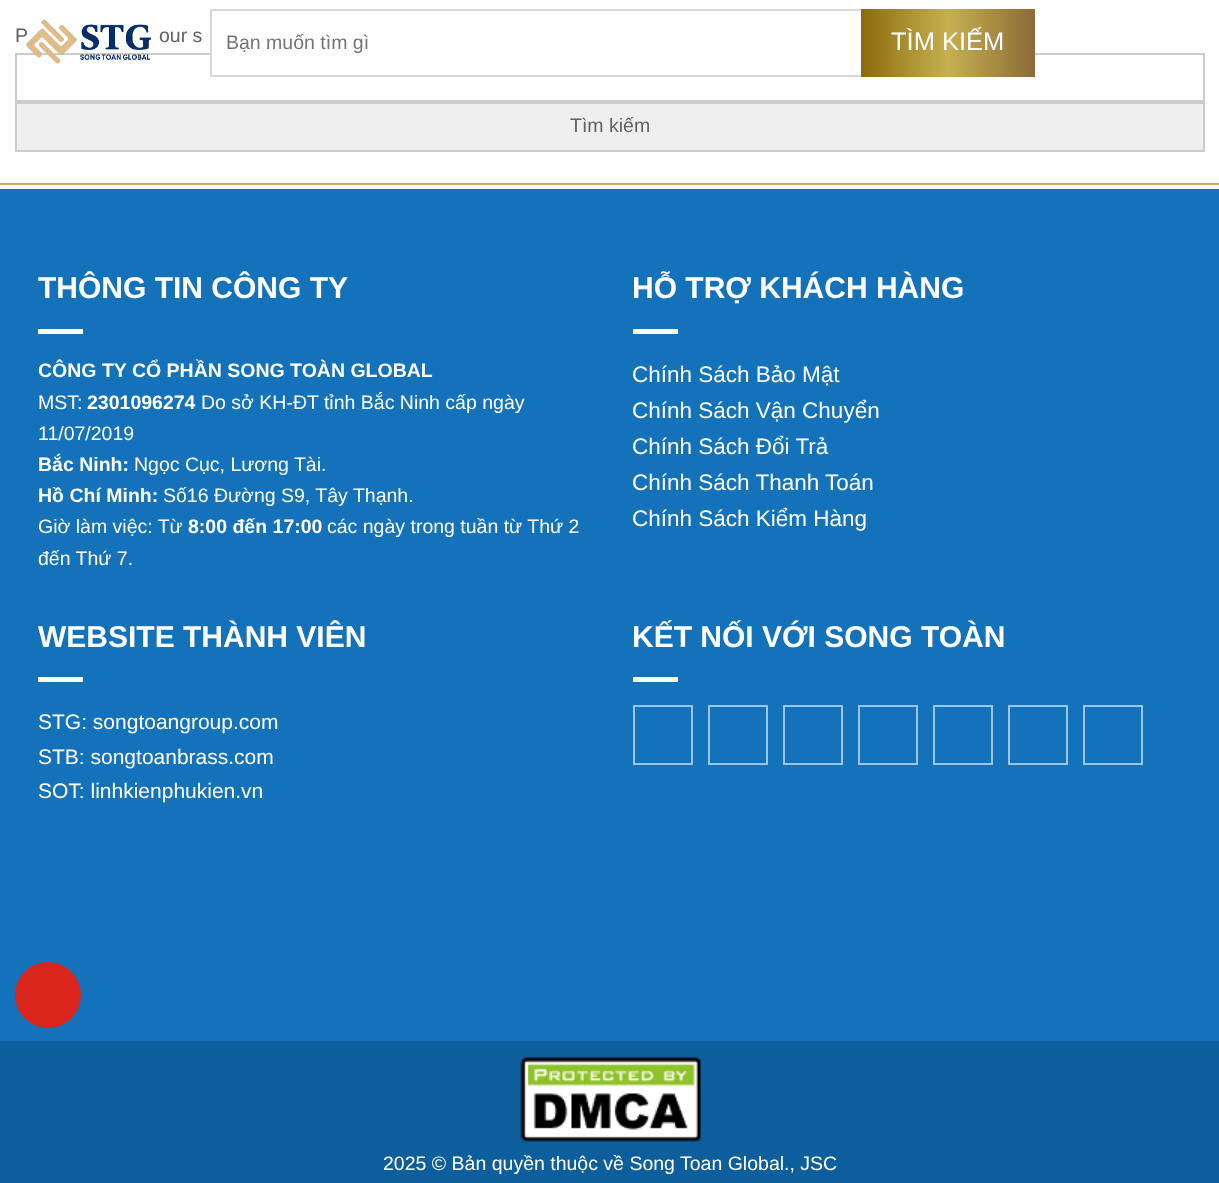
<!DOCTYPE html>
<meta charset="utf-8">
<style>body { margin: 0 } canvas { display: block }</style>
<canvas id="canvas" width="1219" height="1183"></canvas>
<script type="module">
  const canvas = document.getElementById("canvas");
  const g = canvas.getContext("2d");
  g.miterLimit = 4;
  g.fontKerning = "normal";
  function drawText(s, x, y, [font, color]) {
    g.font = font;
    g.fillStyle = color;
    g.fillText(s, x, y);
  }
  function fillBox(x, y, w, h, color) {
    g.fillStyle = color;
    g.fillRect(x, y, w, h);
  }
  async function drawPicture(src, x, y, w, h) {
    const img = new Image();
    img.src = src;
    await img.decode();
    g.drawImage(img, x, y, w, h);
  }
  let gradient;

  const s1 = ["19.5px Liberation Sans", "#616161"];
  const s2 = ["19.5px Liberation Sans", "#757575"];
  const s3 = ["25.5px Liberation Sans", "#FFFFFF"];
  const s4 = ["bold 30px Liberation Sans", "#FFFFFF"];
  const s5 = ["bold 19.5px Liberation Sans", "#FFFFFF"];
  const s6 = ["19.5px Liberation Sans", "#FFFFFF"];
  const s7 = ["22.5px Liberation Sans", "#FFFFFF"];
  const s8 = ["21px Liberation Sans", "#FFFFFF"];

  fillBox(0, 0, 1219, 1183, "#FFFFFF");
  drawText("P", 15, 42, s1);
  g.strokeStyle = "#CCCCCC";
  g.lineWidth = 2;
  g.strokeRect(16, 54, 1188, 47);
  await drawPicture("pic1.png", 26, 19, 125, 45);
  fillBox(212, 53, 649, 2, "#FFFFFF");
  g.strokeStyle = "#D8D8D8";
  g.strokeRect(211, 10, 823, 66);
  drawText("Bạn muốn tìm gì", 226, 49, s2);
  gradient = g.createLinearGradient(861, 43, 1035, 43);
  gradient.addColorStop(0, "#8B6A0E");
  gradient.addColorStop(0.5, "#C6B04F");
  gradient.addColorStop(1, "#8C6B39");
  g.fillStyle = gradient;
  g.fillRect(861, 9, 174, 68);
  drawText("TÌM KIẾM", 891, 50, s3);
  fillBox(0, 183, 1219, 2, "#C4AE4D");
  drawText("our s", 159, 42, s1);
  g.fillStyle = "#EFEFEF";
  g.beginPath();
  g.rect(16, 103, 1188, 48);
  g.fill();
  g.strokeStyle = "#CCCCCC";
  g.stroke();
  drawText("Tìm kiếm", 570, 132, s1);
  fillBox(0, 189, 1219, 852, "#1472BA");
  drawText("THÔNG TIN CÔNG TY", 38, 298, s4);
  fillBox(38, 329, 45, 5, "#FFFFFF");
  drawText("CÔNG TY CỔ PHẦN SONG TOÀN GLOBAL", 38, 377, s5);
  drawText("MST:", 38, 409, s6);
  drawText("2301096274", 87, 409, s5);
  drawText("Do sở KH-ĐT tỉnh Bắc Ninh cấp ngày", 201, 409, s6);
  drawText("11/07/2019", 38, 440, s6);
  drawText("Bắc Ninh:", 38, 471, s5);
  drawText("Ngọc Cục, Lương Tài.", 134, 471, s6);
  drawText("Hồ Chí Minh:", 38, 502, s5);
  drawText("Số16 Đường S9, Tây Thạnh.", 163, 502, s6);
  drawText("Giờ làm việc: Từ", 38, 533, s6);
  drawText("8:00 đến 17:00", 188, 533, s5);
  drawText("các ngày trong tuần từ Thứ 2", 327, 533, s6);
  drawText("đến Thứ 7.", 38, 565, s6);
  drawText("HỖ TRỢ KHÁCH HÀNG", 632, 298, s4);
  fillBox(633, 329, 45, 5, "#FFFFFF");
  drawText("Chính Sách Bảo Mật", 632, 382, s7);
  drawText("Chính Sách Vận Chuyển", 632, 418, s7);
  drawText("Chính Sách Đổi Trả", 632, 454, s7);
  drawText("Chính Sách Thanh Toán", 632, 490, s7);
  drawText("Chính Sách Kiểm Hàng", 632, 526, s7);
  drawText("WEBSITE THÀNH VIÊN", 38, 647, s4);
  fillBox(38, 677, 45, 5, "#FFFFFF");
  drawText("STG: songtoangroup.com", 38, 729, s8);
  drawText("STB: songtoanbrass.com", 38, 764, s8);
  drawText("SOT: linhkienphukien.vn", 38, 798, s8);
  drawText("KẾT NỐI VỚI SONG TOÀN", 632, 647, s4);
  fillBox(633, 677, 45, 5, "#FFFFFF");
  g.strokeStyle = "#9DC5E3";
  g.strokeRect(634, 706, 58, 58);
  g.strokeRect(709, 706, 58, 58);
  g.strokeRect(784, 706, 58, 58);
  g.strokeRect(859, 706, 58, 58);
  g.strokeRect(934, 706, 58, 58);
  g.strokeRect(1009, 706, 58, 58);
  g.strokeRect(1084, 706, 58, 58);
  fillBox(0, 1041, 1219, 142, "#0D5E9C");
  await drawPicture("pic2.png", 520, 1057, 181, 85);
  drawText("2025 © Bản quyền thuộc về Song Toan Global., JSC", 383, 1170, s6);
  g.fillStyle = "#DA251C";
  g.beginPath();
  g.arc(48, 995, 33, 0, Math.PI * 2);
  g.fill();
</script>
